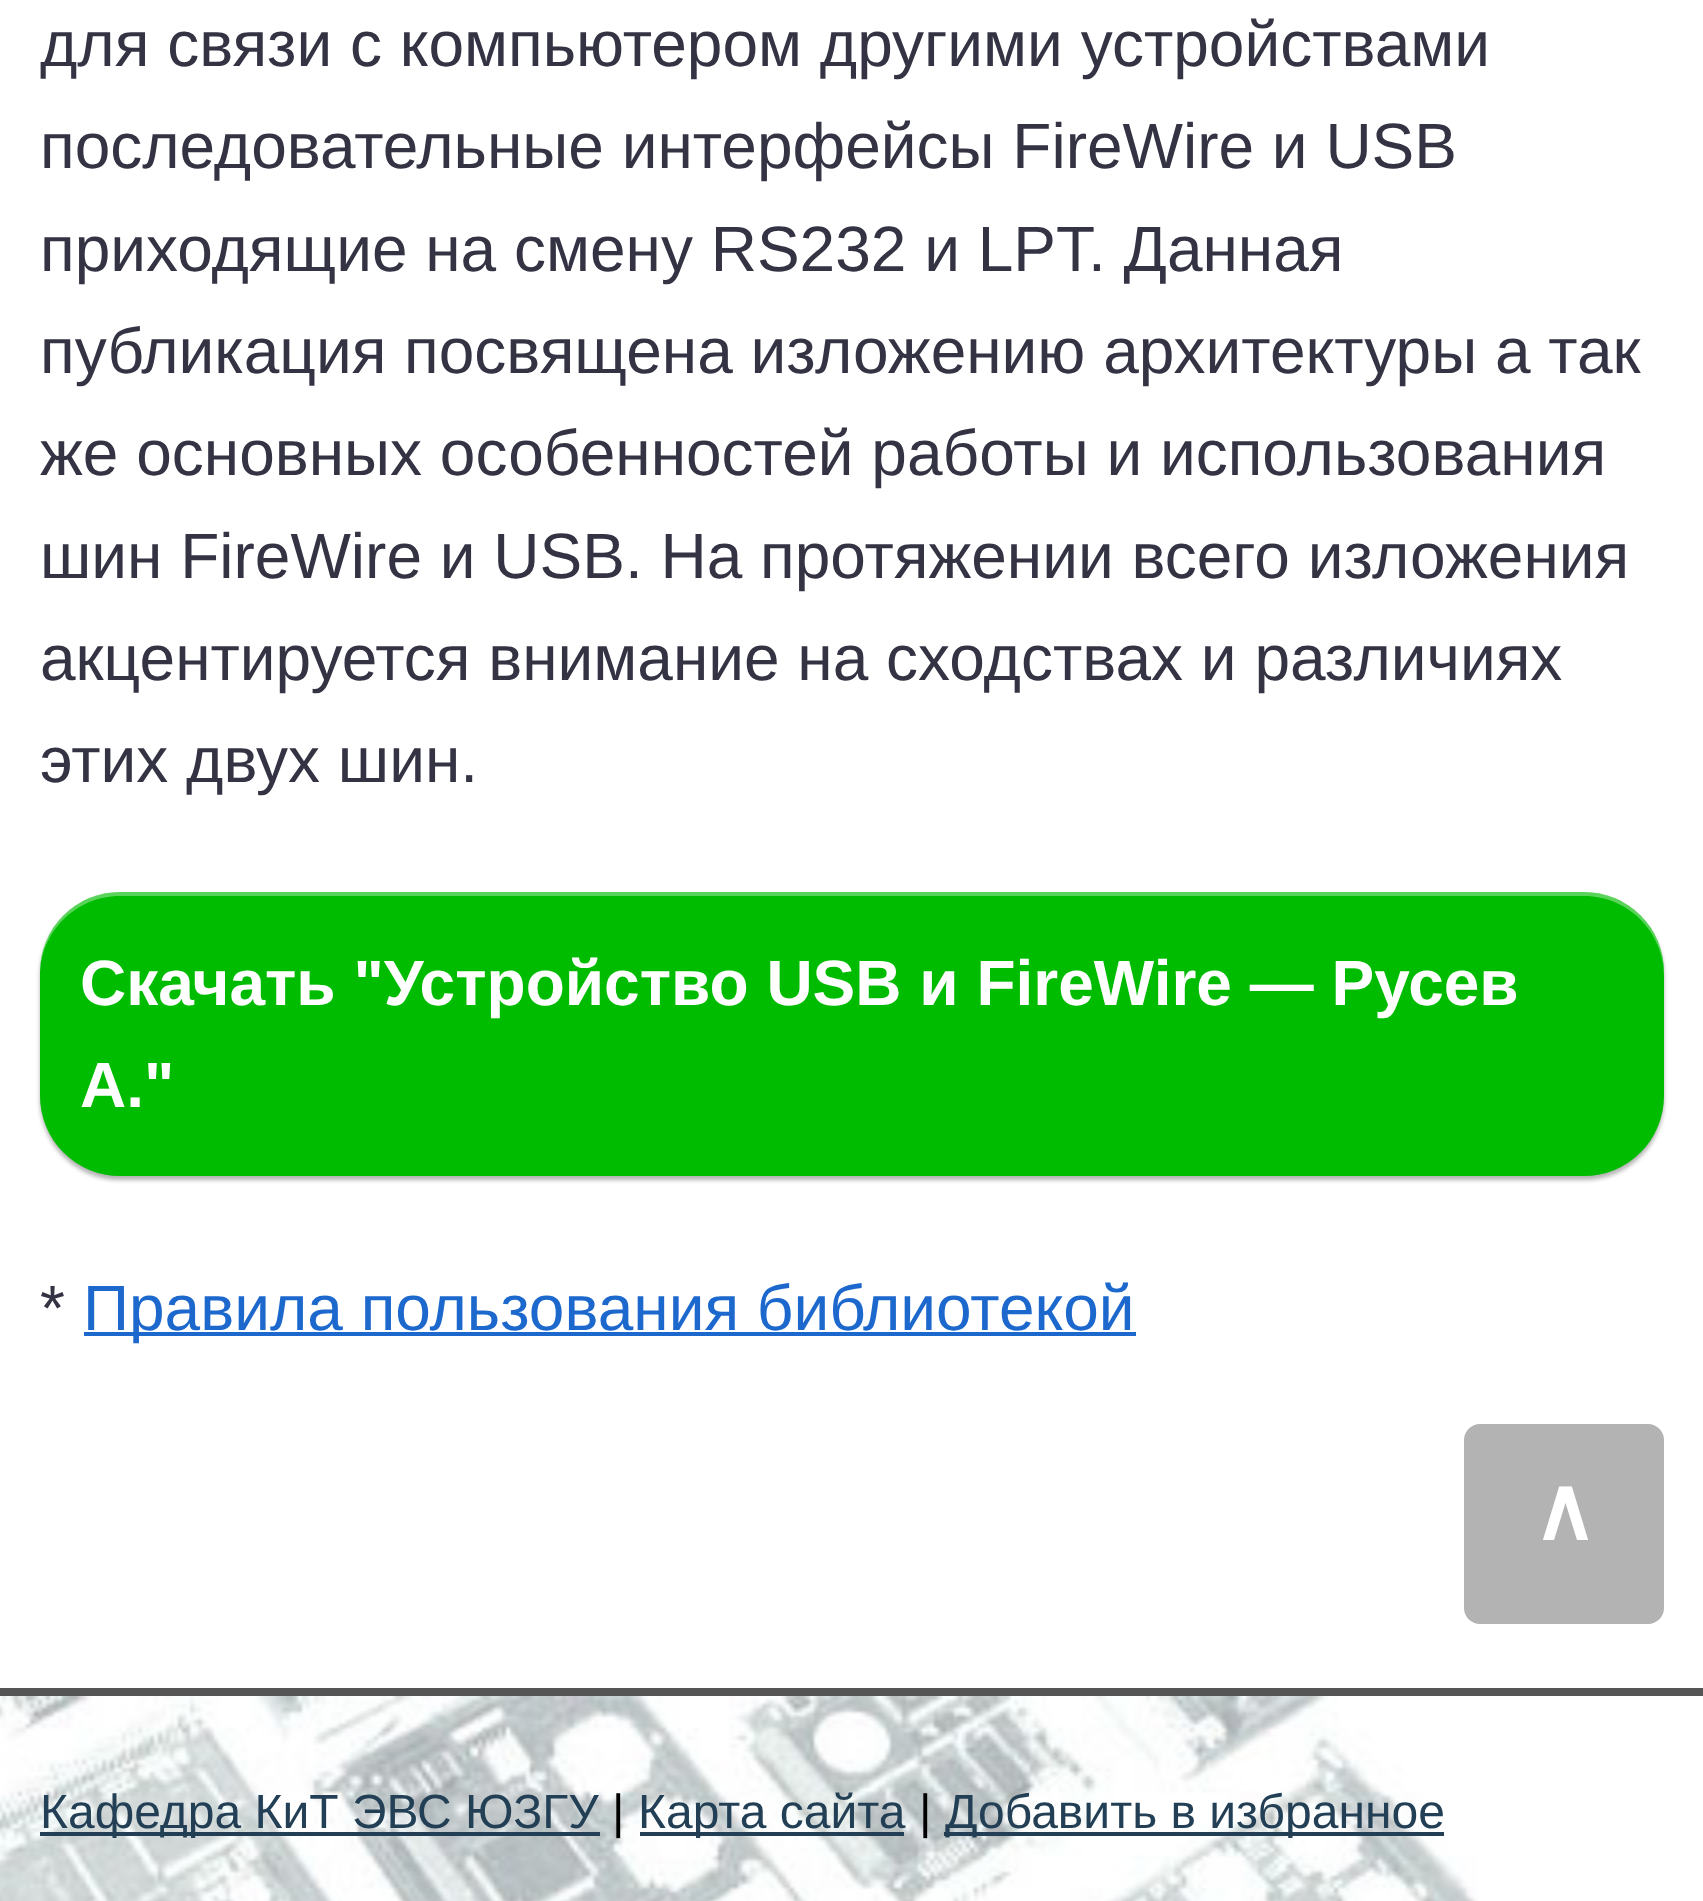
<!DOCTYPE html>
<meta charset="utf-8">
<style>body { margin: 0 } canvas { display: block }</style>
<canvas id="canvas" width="1703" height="1901"></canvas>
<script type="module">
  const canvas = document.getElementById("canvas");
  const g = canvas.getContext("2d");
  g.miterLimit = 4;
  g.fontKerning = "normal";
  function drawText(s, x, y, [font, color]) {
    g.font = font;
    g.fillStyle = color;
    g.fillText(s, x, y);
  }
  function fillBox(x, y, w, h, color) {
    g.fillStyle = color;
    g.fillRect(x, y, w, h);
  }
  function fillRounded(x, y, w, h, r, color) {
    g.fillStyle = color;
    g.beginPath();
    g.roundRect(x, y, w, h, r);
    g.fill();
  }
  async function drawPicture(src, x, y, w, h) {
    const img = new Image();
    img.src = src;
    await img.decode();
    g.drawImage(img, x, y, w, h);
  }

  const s1 = ["64px Liberation Sans", "#333344"];
  const s2 = ["bold 64px Liberation Sans", "#FFFFFF"];
  const s3 = ["64px Liberation Sans", "#1D68CD"];
  const s4 = ["48px Liberation Sans", "#223F55"];
  const s5 = ["48px Liberation Sans", "#000000"];
  const s6 = ["bold 88px DejaVu Sans", "#FFFFFF"];

  fillBox(0, 0, 1703, 1901, "#FFFFFF");
  drawText("для связи с компьютером другими устройствами", 40, 66, s1);
  drawText("последовательные интерфейсы FireWire и USB", 40, 168, s1);
  drawText("приходящие на смену RS232 и LPT. Данная", 40, 271, s1);
  drawText("публикация посвящена изложению архитектуры а так", 40, 373, s1);
  drawText("же основных особенностей работы и использования", 40, 475, s1);
  drawText("шин FireWire и USB. На протяжении всего изложения", 40, 578, s1);
  drawText("акцентируется внимание на сходствах и различиях", 40, 680, s1);
  drawText("этих двух шин.", 40, 782, s1);
  g.fillStyle = "rgba(0, 0, 0, 0.3)";
  g.filter = "blur(2px)";
  g.beginPath();
  g.roundRect(40, 896, 1624, 284, 80);
  g.fill();
  g.filter = "none";
  fillRounded(40, 892, 1624, 284, 80, "#00BC00");
  g.fillStyle = "rgba(255, 255, 255, 0.35)";
  g.beginPath();
  g.moveTo(120, 896);
  g.lineTo(1584, 896);
  g.bezierCurveTo(1628, 896, 1664, 932, 1664, 976);
  g.lineTo(1664, 972);
  g.bezierCurveTo(1664, 928, 1628, 892, 1584, 892);
  g.lineTo(120, 892);
  g.bezierCurveTo(76, 892, 40, 928, 40, 972);
  g.lineTo(40, 976);
  g.bezierCurveTo(40, 932, 76, 896, 120, 896);
  g.closePath();
  g.fill();
  drawText("Скачать \"Устройство USB и FireWire — Русев", 80, 1005, s2);
  drawText("А.\"", 80, 1107, s2);
  drawText("*", 40, 1330, s1);
  fillBox(84, 1332, 1052, 4, "#1D68CD");
  drawText("Правила пользования библиотекой", 83, 1330, s3);
  await drawPicture("pic1.png", 0, 1696, 1478, 205);
  fillBox(0, 1688, 1703, 8, "#555555");
  fillBox(40, 1832, 560, 4, "#223F55");
  drawText("Кафедра КиТ ЭВС ЮЗГУ", 40, 1828, s4);
  drawText("|", 612, 1828, s5);
  fillBox(640, 1832, 264, 4, "#223F55");
  drawText("Карта сайта", 638, 1828, s4);
  drawText("|", 919, 1828, s5);
  fillBox(944, 1832, 500, 4, "#223F55");
  drawText("Добавить в избранное", 945, 1828, s4);
  fillRounded(1464, 1424, 200, 200, 16, "#B3B3B3");
  drawText("∧", 1532, 1540, s6);
</script>
